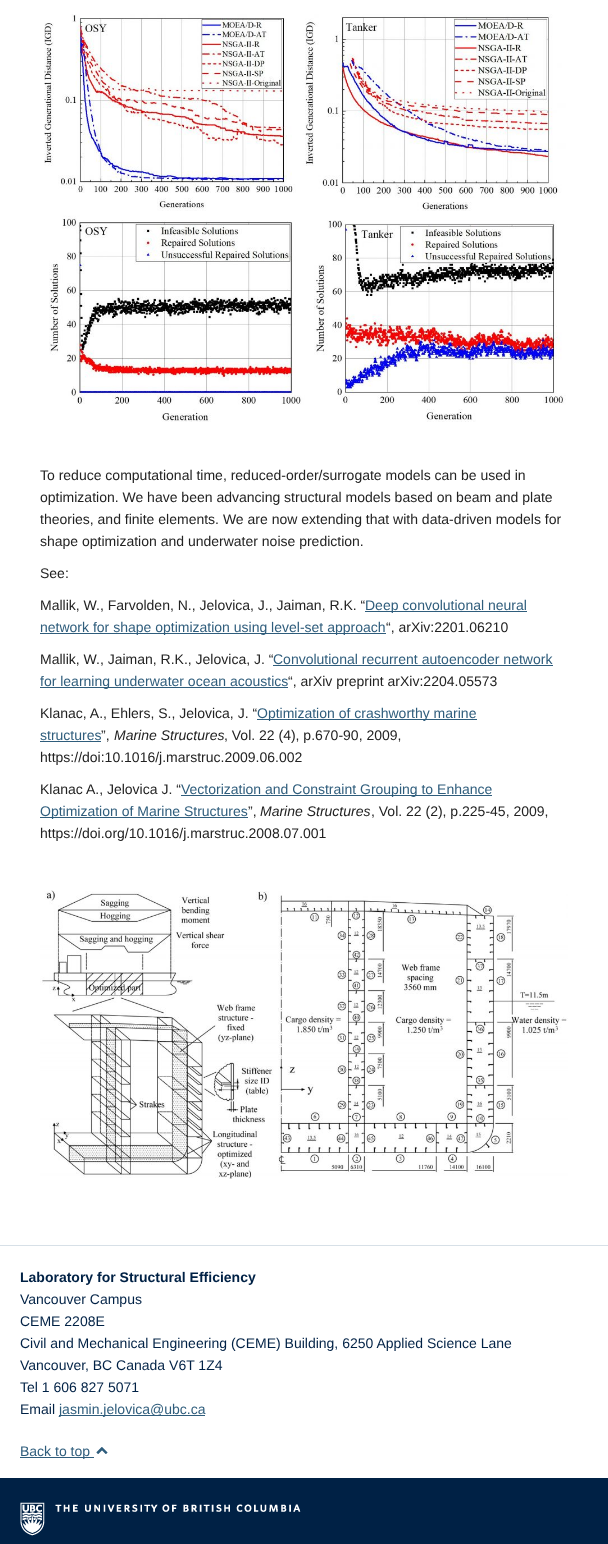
<!DOCTYPE html>
<meta charset="utf-8">
<style>body { margin: 0 } canvas { display: block }</style>
<canvas id="canvas" width="608" height="1544"></canvas>
<script type="module">
  const canvas = document.getElementById("canvas");
  const g = canvas.getContext("2d");
  g.miterLimit = 4;
  g.fontKerning = "normal";
  function drawText(s, x, y, [font, color]) {
    g.font = font;
    g.fillStyle = color;
    g.fillText(s, x, y);
  }
  function fillBox(x, y, w, h, color) {
    g.fillStyle = color;
    g.fillRect(x, y, w, h);
  }
  async function drawPicture(src, x, y, w, h) {
    const img = new Image();
    img.src = src;
    await img.decode();
    g.drawImage(img, x, y, w, h);
  }

  const s1 = ["14px Liberation Sans", "#222222"];
  const s2 = ["14px Liberation Sans", "#2F5D7C"];
  const s3 = ["italic 14px Liberation Sans", "#222222"];
  const s4 = ["bold 14px Liberation Sans", "#002145"];
  const s5 = ["14px Liberation Sans", "#002145"];

  fillBox(0, 0, 608, 1544, "#FFFFFF");
  await drawPicture("pic1.png", 44, 14, 522, 408);
  drawText("To reduce computational time, reduced-order/surrogate models can be used in", 40, 480, s1);
  drawText("optimization. We have been advancing structural models based on beam and plate", 40, 502, s1);
  drawText("theories, and finite elements. We are now extending that with data-driven models for", 40, 524, s1);
  drawText("shape optimization and underwater noise prediction.", 40, 546, s1);
  drawText("See:", 40, 578, s1);
  drawText("Mallik, W., Farvolden, N., Jelovica, J., Jaiman, R.K. “", 40, 610, s1);
  fillBox(365, 611, 162, 1, "#2F5D7C");
  drawText("Deep convolutional neural", 365, 610, s2);
  fillBox(40, 633, 346, 1, "#2F5D7C");
  drawText("network for shape optimization using level-set approach", 40, 632, s2);
  drawText("“, arXiv:2201.06210", 386, 632, s1);
  drawText("Mallik, W., Jaiman, R.K., Jelovica, J. “", 40, 664, s1);
  drawText("Convolutional recurrent autoencoder network", 273, 664, s2);
  fillBox(273, 665, 280, 1, "#2F5D7C");
  fillBox(40, 687, 248, 1, "#2F5D7C");
  drawText("for learning underwater ocean acoustics", 40, 686, s2);
  drawText("“, arXiv preprint arXiv:2204.05573", 288, 686, s1);
  drawText("Klanac, A., Ehlers, S., Jelovica, J. “", 40, 718, s1);
  fillBox(257, 719, 220, 1, "#2F5D7C");
  drawText("Optimization of crashworthy marine", 257, 718, s2);
  drawText("structures", 40, 740, s2);
  fillBox(40, 741, 61, 1, "#2F5D7C");
  drawText("”,", 101, 740, s1);
  drawText("Marine Structures", 114, 740, s3);
  drawText(", Vol. 22 (4), p.670-90, 2009,", 224, 740, s1);
  drawText("https://doi:10.1016/j.marstruc.2009.06.002", 40, 762, s1);
  drawText("Klanac A., Jelovica J. “", 40, 794, s1);
  fillBox(181, 795, 311, 1, "#2F5D7C");
  drawText("Vectorization and Constraint Grouping to Enhance", 181, 794, s2);
  fillBox(40, 817, 208, 1, "#2F5D7C");
  drawText("Optimization of Marine Structures", 40, 816, s2);
  drawText("”,", 248, 816, s1);
  drawText("Marine Structures", 260, 816, s3);
  drawText(", Vol. 22 (2), p.225-45, 2009,", 371, 816, s1);
  drawText("https://doi.org/10.1016/j.marstruc.2008.07.001", 40, 838, s1);
  await drawPicture("pic2.png", 40, 890, 528, 289);
  fillBox(0, 1478, 608, 66, "#002145");
  fillBox(0, 1245, 608, 1, "#D7E0E7");
  drawText("Laboratory for Structural Efficiency", 20, 1282, s4);
  drawText("Vancouver Campus", 20, 1304, s5);
  drawText("CEME 2208E", 20, 1326, s5);
  drawText("Civil and Mechanical Engineering (CEME) Building, 6250 Applied Science Lane", 20, 1348, s5);
  drawText("Vancouver", 20, 1370, s5);
  drawText(", BC Canada V6T 1Z4", 85, 1370, s5);
  drawText("Tel 1 606 827 5071", 20, 1392, s5);
  drawText("Email", 20, 1414, s5);
  fillBox(59, 1415, 146, 1, "#2F5D7C");
  drawText("jasmin.jelovica@ubc.ca", 59, 1414, s2);
  fillBox(20, 1457, 74, 1, "#2F5D7C");
  drawText("Back to top", 20, 1456, s2);
  await drawPicture("pic3.png", 96, 1447, 12, 7);
  await drawPicture("pic4.png", 20, 1502, 281, 34);
</script>
